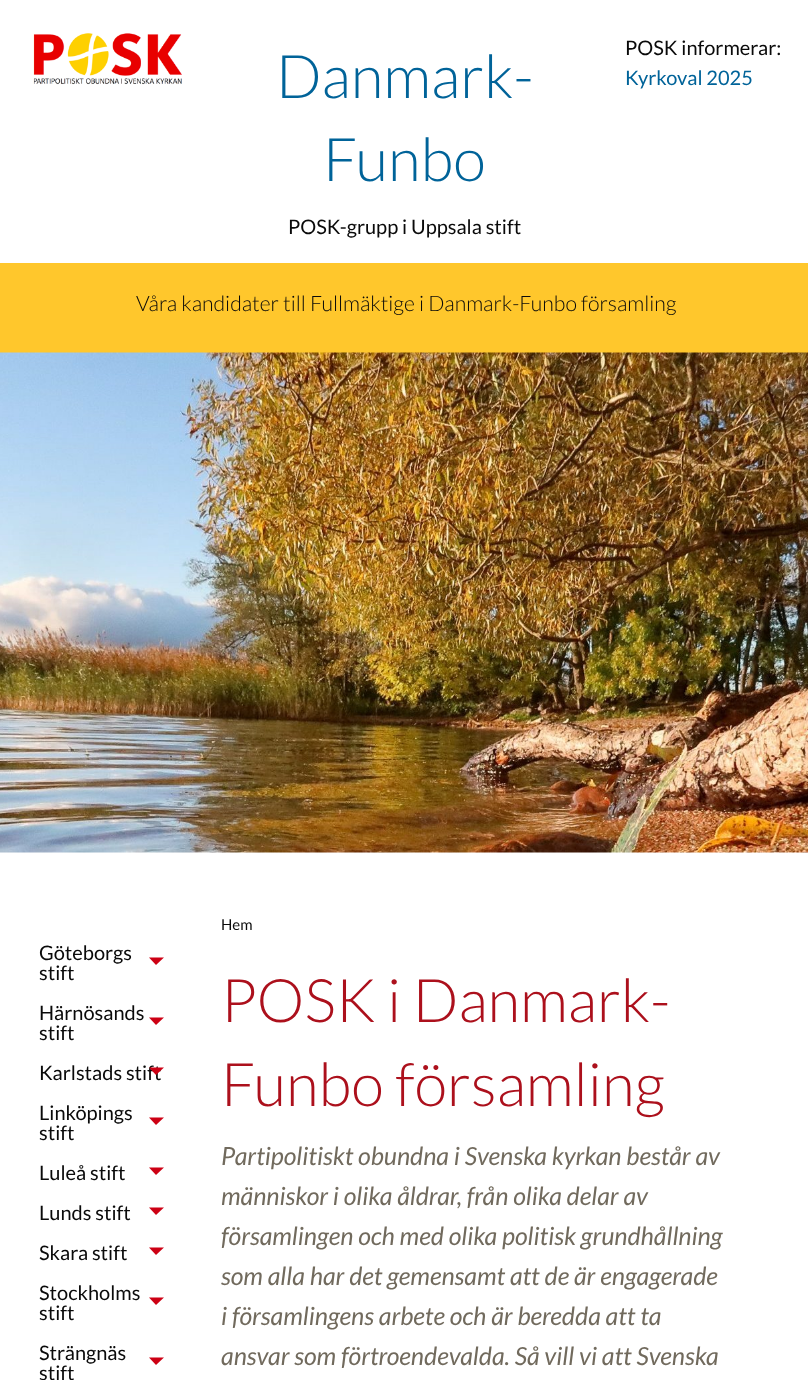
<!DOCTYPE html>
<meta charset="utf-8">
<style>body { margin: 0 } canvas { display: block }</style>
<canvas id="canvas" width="808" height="1380"></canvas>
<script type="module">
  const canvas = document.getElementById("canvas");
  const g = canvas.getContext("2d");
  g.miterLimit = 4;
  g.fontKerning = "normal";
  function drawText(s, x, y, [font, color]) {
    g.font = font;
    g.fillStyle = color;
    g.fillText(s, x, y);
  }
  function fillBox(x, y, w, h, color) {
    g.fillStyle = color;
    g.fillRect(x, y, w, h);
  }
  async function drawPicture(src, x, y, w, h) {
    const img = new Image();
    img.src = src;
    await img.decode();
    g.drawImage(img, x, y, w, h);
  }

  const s1 = ["300 60px Lato", "#006399"];
  const s2 = ["20px Lato", "#0A0A0A"];
  const s3 = ["20px Lato", "#006399"];
  const s4 = ["300 21.25px Lato", "#0A0A0A"];
  const s5 = ["15px Lato", "#0A0A0A"];
  const s6 = ["300 60px Lato", "#AC101C"];
  const s7 = ["italic 25px Lato", "#716A5D"];

  fillBox(0, 0, 808, 1380, "#FFFFFF");
  await drawPicture("pic1.png", 33, 33, 149, 52);
  drawText("Danmark-", 276, 98, s1);
  drawText("Funbo", 323, 181, s1);
  drawText("POSK-grupp i Uppsala stift", 288, 234, s2);
  drawText("POSK informerar:", 625, 55, s2);
  drawText("Kyrkoval 2025", 625, 85, s3);
  fillBox(0, 263, 808, 90, "#FFC72C");
  drawText("Våra kandidater till Fullmäktige i Danmark-Funbo församling", 136, 311, s4);
  await drawPicture("pic2.png", 0, 352, 808, 501);
  drawText("Göteborgs", 39, 960, s2);
  g.fillStyle = "#CD0014";
  g.beginPath();
  g.moveTo(149, 957.5);
  g.lineTo(164, 957.5);
  g.lineTo(156, 965);
  g.closePath();
  g.fill();
  drawText("stift", 39, 980, s2);
  drawText("Härnösands", 39, 1020, s2);
  g.fillStyle = "#CD0014";
  g.beginPath();
  g.moveTo(149, 1017.5);
  g.lineTo(164, 1017.5);
  g.lineTo(156, 1025);
  g.closePath();
  g.fill();
  drawText("stift", 39, 1040, s2);
  drawText("Karlstads stift", 39, 1080, s2);
  g.fillStyle = "#CD0014";
  g.beginPath();
  g.moveTo(149, 1067.5);
  g.lineTo(164, 1067.5);
  g.lineTo(156, 1075);
  g.closePath();
  g.fill();
  drawText("Linköpings", 39, 1120, s2);
  g.fillStyle = "#CD0014";
  g.beginPath();
  g.moveTo(149, 1117.5);
  g.lineTo(164, 1117.5);
  g.lineTo(156, 1125);
  g.closePath();
  g.fill();
  drawText("stift", 39, 1140, s2);
  drawText("Luleå stift", 39, 1180, s2);
  g.fillStyle = "#CD0014";
  g.beginPath();
  g.moveTo(149, 1167.5);
  g.lineTo(164, 1167.5);
  g.lineTo(156, 1175);
  g.closePath();
  g.fill();
  drawText("Lunds stift", 39, 1220, s2);
  g.fillStyle = "#CD0014";
  g.beginPath();
  g.moveTo(149, 1207.5);
  g.lineTo(164, 1207.5);
  g.lineTo(156, 1215);
  g.closePath();
  g.fill();
  drawText("Skara stift", 39, 1260, s2);
  g.fillStyle = "#CD0014";
  g.beginPath();
  g.moveTo(149, 1247.5);
  g.lineTo(164, 1247.5);
  g.lineTo(156, 1255);
  g.closePath();
  g.fill();
  drawText("Stockholms", 39, 1300, s2);
  g.fillStyle = "#CD0014";
  g.beginPath();
  g.moveTo(149, 1297.5);
  g.lineTo(164, 1297.5);
  g.lineTo(156, 1305);
  g.closePath();
  g.fill();
  drawText("stift", 39, 1320, s2);
  drawText("Strängnäs", 39, 1360, s2);
  g.fillStyle = "#CD0014";
  g.beginPath();
  g.moveTo(149, 1357.5);
  g.lineTo(164, 1357.5);
  g.lineTo(156, 1365);
  g.closePath();
  g.fill();
  drawText("stift", 39, 1380, s2);
  drawText("Hem", 221, 930, s5);
  drawText("POSK i Danmark-", 221, 1022, s6);
  drawText("Funbo församling", 221, 1106, s6);
  drawText("Partipolitiskt obundna i Svenska kyrkan består av", 221, 1165, s7);
  drawText("människor i olika åldrar, från olika delar av", 221, 1205, s7);
  drawText("församlingen och med olika politisk grundhållning", 221, 1245, s7);
  drawText("som alla har det gemensamt att de är engagerade", 221, 1285, s7);
  drawText("i församlingens arbete och är beredda att ta", 221, 1325, s7);
  drawText("ansvar som förtroendevalda. Så vill vi att Svenska", 221, 1365, s7);
</script>
